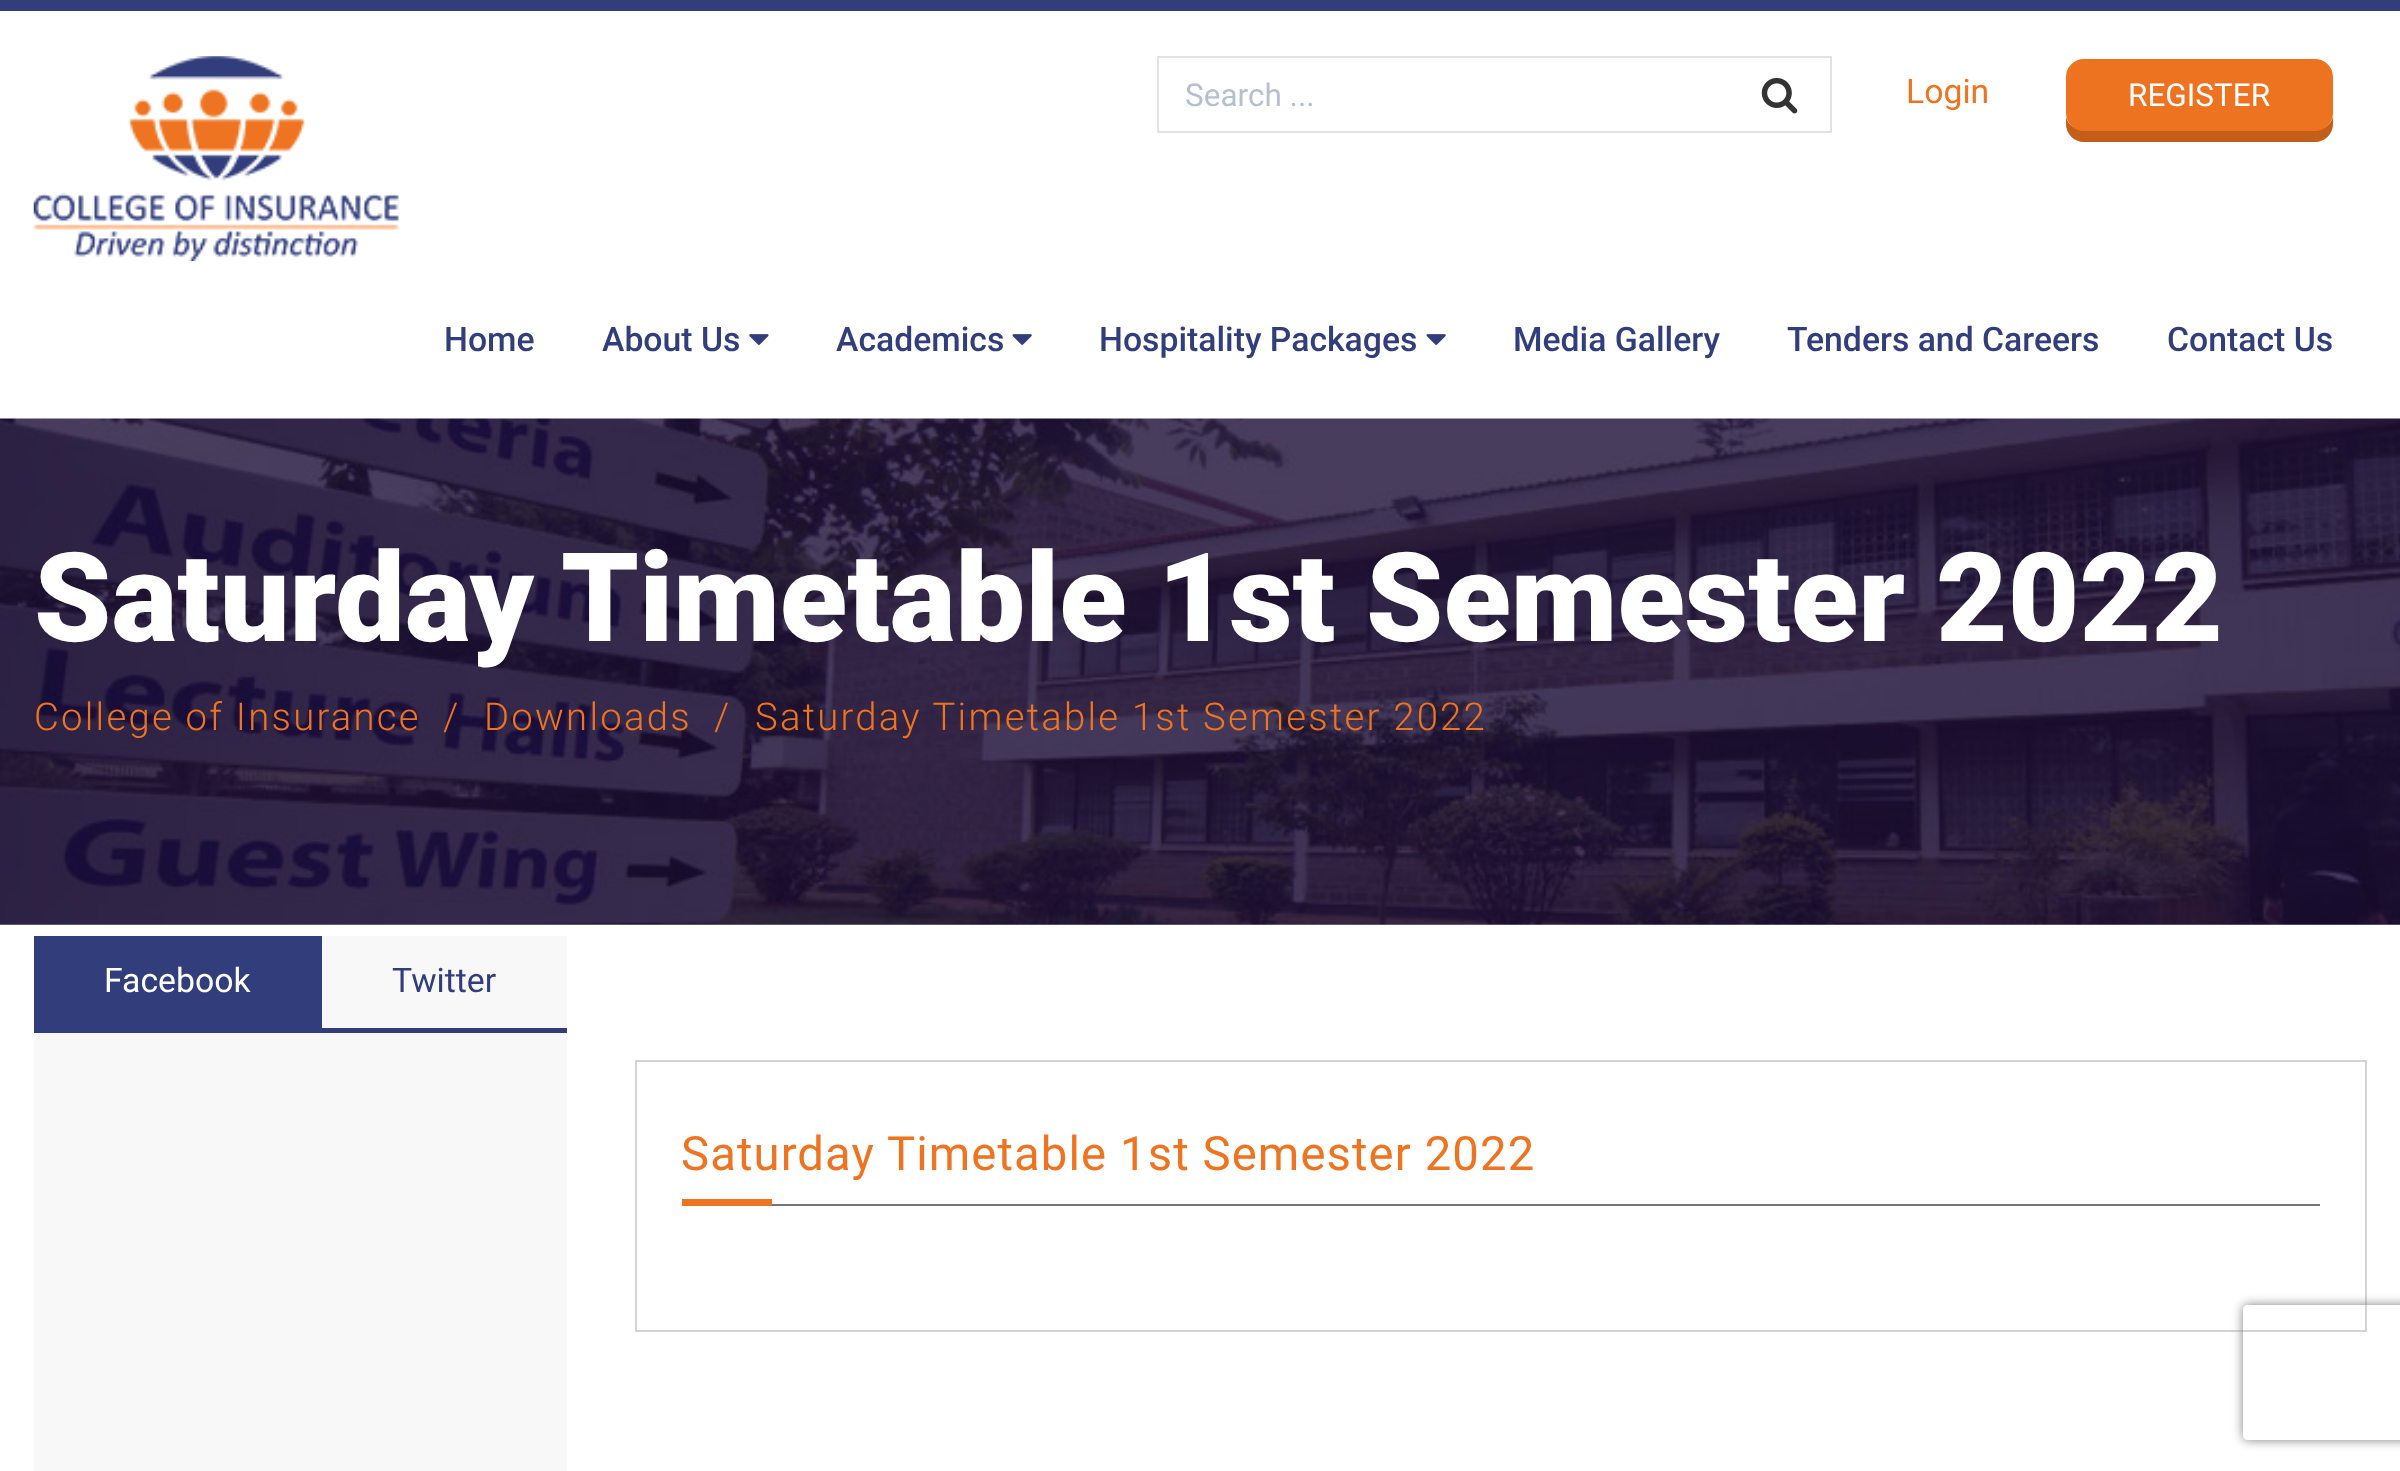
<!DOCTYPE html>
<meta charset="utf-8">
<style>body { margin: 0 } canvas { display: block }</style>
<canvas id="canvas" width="2400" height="1471"></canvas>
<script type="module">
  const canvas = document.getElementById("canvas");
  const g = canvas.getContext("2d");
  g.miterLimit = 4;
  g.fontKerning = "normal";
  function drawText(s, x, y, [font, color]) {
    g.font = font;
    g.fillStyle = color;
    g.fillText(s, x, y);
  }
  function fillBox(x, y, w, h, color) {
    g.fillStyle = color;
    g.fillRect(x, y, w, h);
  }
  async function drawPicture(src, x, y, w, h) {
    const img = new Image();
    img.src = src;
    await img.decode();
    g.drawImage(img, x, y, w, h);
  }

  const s1 = ["31.5px Roboto", "#B6BFD0"];
  const s2 = ["33.75px Roboto", "#EE7421"];
  const s3 = ["31.5px Roboto", "#FFFFFF"];
  const s4 = ["500 33.75px Roboto", "#323D7C"];
  const s5 = ["900 123.75px Roboto", "#FFFFFF"];
  const s6 = ["300 38.25px Roboto", "#EE7421"];
  const s7 = ["33.75px Roboto", "#FFFFFF"];
  const s8 = ["33.75px Roboto", "#323D7C"];
  const s9 = ["47.25px Roboto", "#EE7421"];

  fillBox(0, 0, 2400, 1471, "#FFFFFF");
  fillBox(0, 0, 2400, 11, "#323D7C");
  await drawPicture("pic1.png", 33, 56, 366, 205);
  g.strokeStyle = "#E2E2E2";
  g.lineWidth = 2;
  g.strokeRect(1158, 57, 673, 75);
  drawText("Search ...", 1185, 106, s1);
  await drawPicture("pic2.png", 1761, 77, 37, 37);
  drawText("Login", 1906, 103, s2);
  g.fillStyle = "#C35E1B";
  g.beginPath();
  g.moveTo(2066, 117);
  g.lineTo(2066, 124);
  g.bezierCurveTo(2066, 134, 2074, 142, 2084, 142);
  g.lineTo(2315, 142);
  g.bezierCurveTo(2325, 142, 2333, 134, 2333, 124);
  g.lineTo(2333, 116);
  g.bezierCurveTo(2332, 124, 2324, 130, 2315, 130);
  g.lineTo(2084, 130);
  g.bezierCurveTo(2075, 130, 2068, 125, 2066, 117);
  g.closePath();
  g.fill();
  g.fillStyle = "#EE7321";
  g.beginPath();
  g.roundRect(2067, 60, 265, 70, 17);
  g.fill();
  g.strokeStyle = "#EE7321";
  g.stroke();
  drawText("REGISTER", 2128, 106, s3);
  drawText("Home", 444, 351, s4);
  drawText("About Us", 602, 351, s4);
  await drawPicture("pic3.png", 749, 334, 20, 11);
  drawText("Academics", 836, 351, s4);
  await drawPicture("pic4.png", 1012, 334, 20, 11);
  drawText("Hospitality Packages", 1099, 351, s4);
  await drawPicture("pic4.png", 1426, 334, 20, 11);
  drawText("Media Gallery", 1513, 351, s4);
  drawText("Tenders and Careers", 1787, 351, s4);
  drawText("Contact Us", 2167, 351, s4);
  await drawPicture("pic5.png", 0, 418, 2400, 507);
  drawText("Saturday Timetable 1st Semester 2022", 34, 641, s5);
  g.letterSpacing = "2.25px";
  drawText("College of Insurance", 34, 730, s6);
  drawText("/", 443, 730, s6);
  drawText("Downloads", 484, 730, s6);
  drawText("/", 714, 730, s6);
  drawText("Saturday Timetable 1st Semester 2022", 755, 730, s6);
  fillBox(34, 936, 533, 535, "#F8F8F8");
  fillBox(34, 1028, 533, 5, "#323D7C");
  fillBox(34, 936, 288, 92, "#323D7C");
  g.letterSpacing = "0px";
  drawText("Facebook", 104, 992, s7);
  drawText("Twitter", 392, 992, s8);
  g.strokeStyle = "#D4D4D4";
  g.strokeRect(636, 1061, 1730, 270);
  fillBox(772, 1204, 1548, 2, "#747474");
  g.letterSpacing = "1.1px";
  drawText("Saturday Timetable 1st Semester 2022", 681, 1170, s9);
  fillBox(682, 1199, 90, 7, "#EE7421");
  g.save();
  g.beginPath();
  g.moveTo(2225, 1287);
  g.lineTo(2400, 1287);
  g.lineTo(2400, 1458);
  g.lineTo(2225, 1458);
  g.closePath();
  g.moveTo(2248, 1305);
  g.lineTo(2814, 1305);
  g.bezierCurveTo(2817, 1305, 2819, 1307, 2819, 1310);
  g.lineTo(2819, 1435);
  g.bezierCurveTo(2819, 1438, 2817, 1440, 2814, 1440);
  g.lineTo(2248, 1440);
  g.bezierCurveTo(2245, 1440, 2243, 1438, 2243, 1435);
  g.lineTo(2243, 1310);
  g.bezierCurveTo(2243, 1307, 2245, 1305, 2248, 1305);
  g.closePath();
  g.clip("evenodd");
  g.fillStyle = "#808080";
  g.filter = "blur(5.5px)";
  g.beginPath();
  g.roundRect(2243, 1305, 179, 135, 5);
  g.fill();
  g.filter = "none";
  g.restore();
</script>
